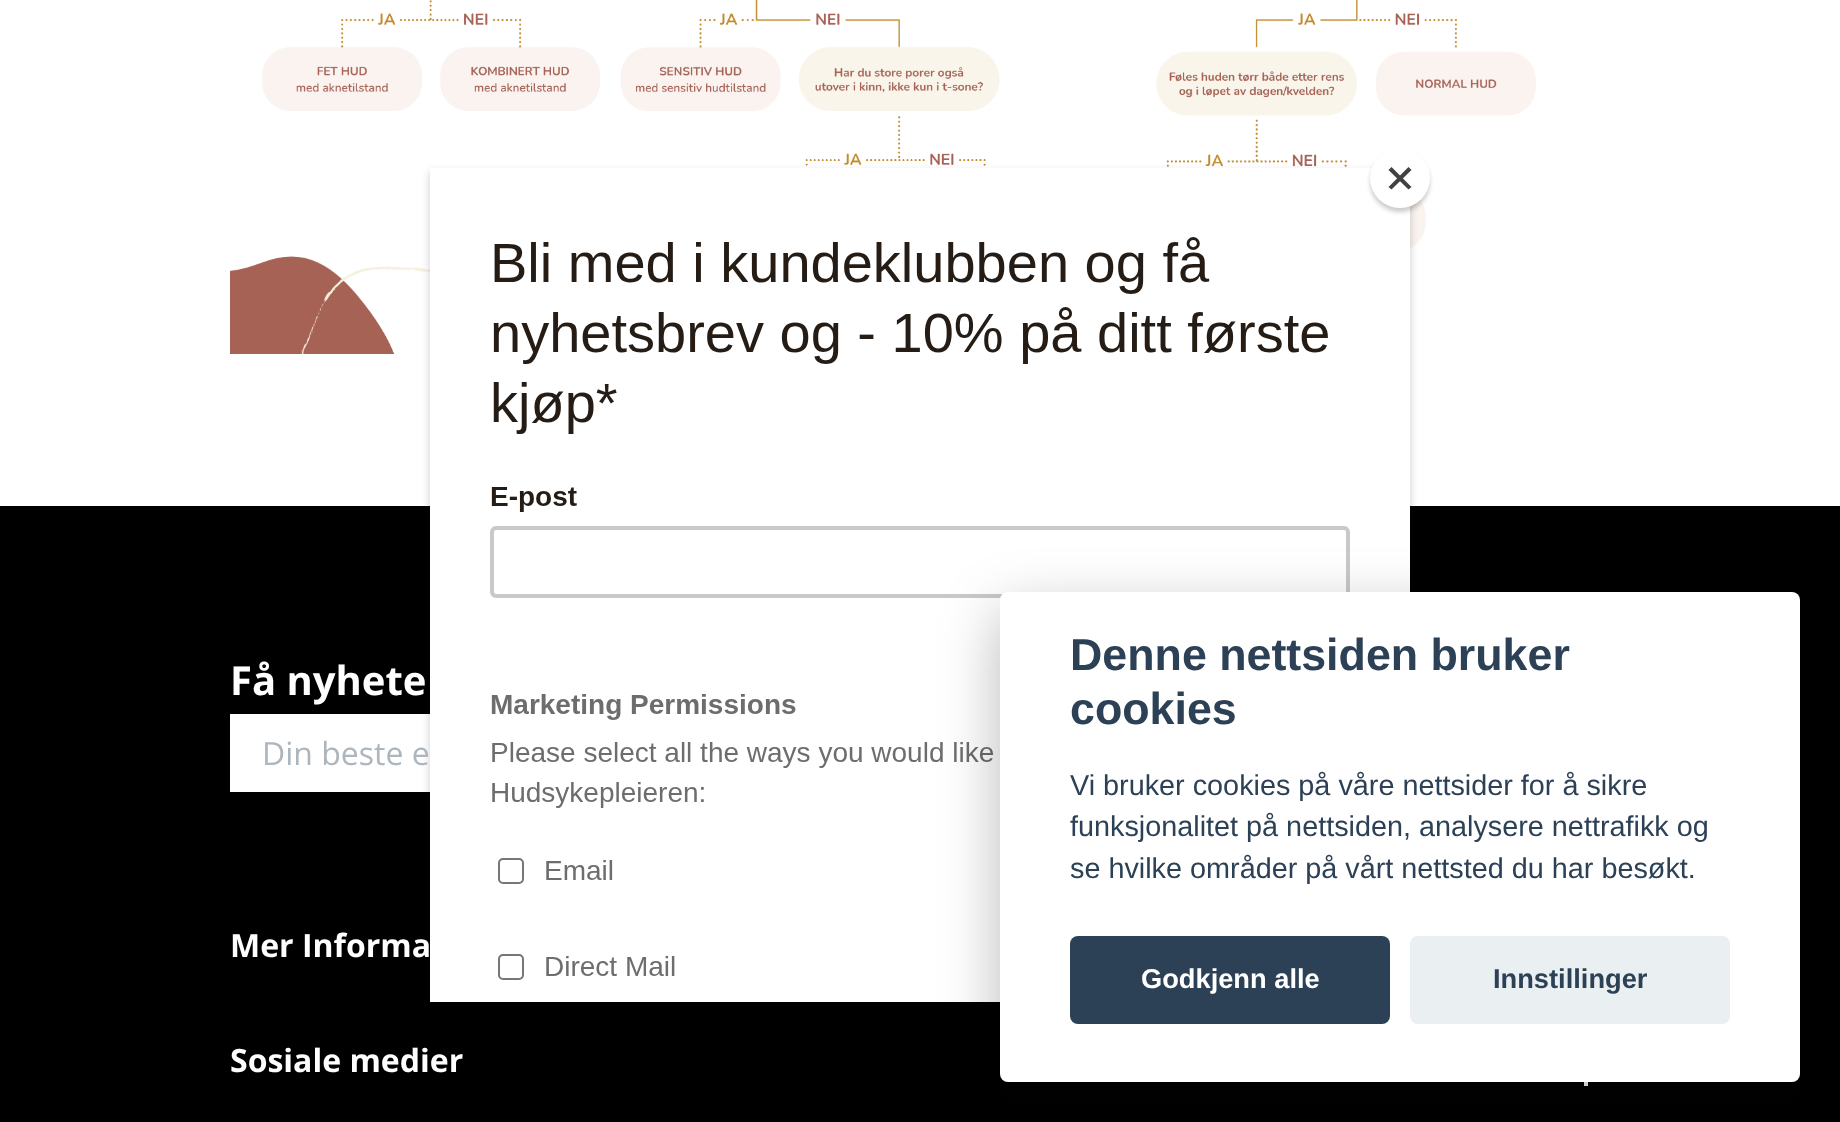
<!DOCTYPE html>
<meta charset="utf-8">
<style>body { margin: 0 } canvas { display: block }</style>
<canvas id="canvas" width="1840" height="1122"></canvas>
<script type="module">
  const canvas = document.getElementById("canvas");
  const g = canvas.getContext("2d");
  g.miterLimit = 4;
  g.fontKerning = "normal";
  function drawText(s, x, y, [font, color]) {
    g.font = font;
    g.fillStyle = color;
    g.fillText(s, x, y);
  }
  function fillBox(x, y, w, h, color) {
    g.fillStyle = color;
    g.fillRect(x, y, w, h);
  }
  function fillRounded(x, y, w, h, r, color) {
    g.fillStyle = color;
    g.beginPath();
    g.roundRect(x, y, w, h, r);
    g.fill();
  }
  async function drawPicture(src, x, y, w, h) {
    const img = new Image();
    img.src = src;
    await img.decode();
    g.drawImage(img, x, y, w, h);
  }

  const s1 = ["bold 40px Open Sans", "#FFFFFF"];
  const s2 = ["32px Open Sans", "#ADB5BD"];
  const s3 = ["bold 32px Open Sans", "#FFFFFF"];
  const s4 = ["bold 44.75px Liberation Sans", "#2D4156"];
  const s5 = ["28.8px Liberation Sans", "#2D4156"];
  const s6 = ["bold 27.25px Liberation Sans", "#FFFFFF"];
  const s7 = ["bold 27.25px Liberation Sans", "#2D4156"];

  fillBox(0, 0, 1840, 1122, "#FFFFFF");
  await drawPicture("pic1.png", 230, 0, 1306, 354);
  fillBox(0, 506, 1840, 616, "#000000");
  fillBox(230, 714, 200, 78, "#FFFFFF");
  g.fillStyle = "rgba(0, 0, 0, 0.2)";
  g.filter = "blur(4px)";
  g.beginPath();
  g.rect(430, 172, 980, 834);
  g.fill();
  g.filter = "none";
  await drawPicture("pic2.png", 430, 168, 980, 834);
  g.filter = "blur(2px)";
  g.beginPath();
  g.roundRect(1370, 152, 60, 60, 30);
  g.fill();
  g.filter = "none";
  g.fillStyle = "#FFFFFF";
  g.beginPath();
  g.arc(1400, 178, 30, 0, Math.PI * 2);
  g.fill();
  g.fillStyle = "#414141";
  g.beginPath();
  g.moveTo(1408.5, 167);
  g.lineTo(1411.5, 170);
  g.lineTo(1391.5, 189.5);
  g.lineTo(1388.5, 187);
  g.closePath();
  g.fill();
  g.beginPath();
  g.moveTo(1388.5, 170);
  g.lineTo(1391.5, 167);
  g.lineTo(1411.5, 187);
  g.lineTo(1408.5, 189.5);
  g.closePath();
  g.fill();
  drawText("Få nyhete", 230, 695, s1);
  drawText("Din beste e", 262, 765, s2);
  drawText("Mer Informa", 230, 957, s3);
  drawText("Sosiale medier", 230, 1072, s3);
  fillBox(1584, 1082, 4, 4, "#FFFFFF");
  g.fillStyle = "rgba(2, 2, 3, 0.28)";
  g.filter = "blur(30px)";
  g.beginPath();
  g.roundRect(1000, 612, 800, 490, 8);
  g.fill();
  g.filter = "none";
  fillRounded(1000, 592, 800, 490, 8, "#FFFFFF");
  drawText("Denne nettsiden bruker", 1070, 670, s4);
  drawText("cookies", 1070, 724, s4);
  drawText("Vi bruker cookies på våre nettsider for å sikre", 1070, 795, s5);
  drawText("funksjonalitet på nettsiden, analysere nettrafikk og", 1070, 836, s5);
  drawText("se hvilke områder på vårt nettsted du har besøkt.", 1070, 878, s5);
  fillRounded(1070, 936, 320, 88, 8, "#2D4156");
  drawText("Godkjenn alle", 1141, 988, s6);
  fillRounded(1410, 936, 320, 88, 8, "#EAEFF2");
  drawText("Innstillinger", 1493, 988, s7);
</script>
